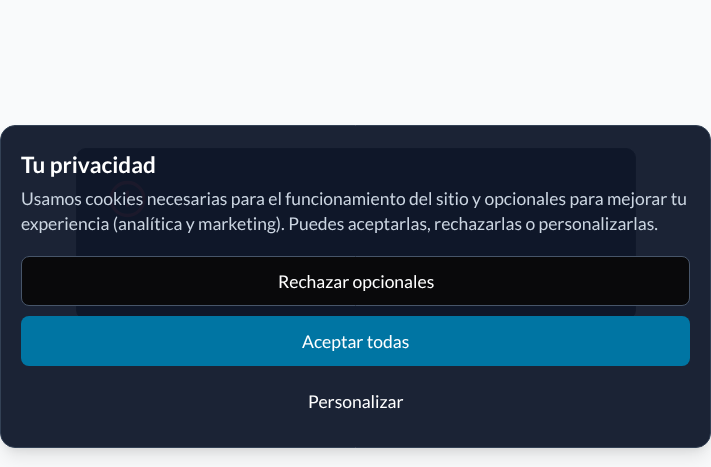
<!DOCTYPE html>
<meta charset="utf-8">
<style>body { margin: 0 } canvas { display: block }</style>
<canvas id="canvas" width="711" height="467"></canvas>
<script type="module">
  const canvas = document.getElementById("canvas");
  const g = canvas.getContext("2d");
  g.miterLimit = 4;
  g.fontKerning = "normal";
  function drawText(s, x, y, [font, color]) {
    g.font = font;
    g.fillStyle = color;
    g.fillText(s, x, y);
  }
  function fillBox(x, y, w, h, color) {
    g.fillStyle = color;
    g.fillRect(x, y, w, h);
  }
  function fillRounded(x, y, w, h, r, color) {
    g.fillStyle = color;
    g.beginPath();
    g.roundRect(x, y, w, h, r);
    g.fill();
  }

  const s1 = ["bold 22.5px Lato", "#FFFFFF"];
  const s2 = ["17.5px Lato", "#CBD5E1"];
  const s3 = ["17.5px Lato", "#FFFFFF"];

  fillBox(0, 0, 711, 467, "#F9FAFB");
  g.fillStyle = "rgba(0, 0, 0, 0.05)";
  g.filter = "blur(1px)";
  g.beginPath();
  g.roundRect(76, 149, 560, 172, 10);
  g.fill();
  g.filter = "none";
  g.fillStyle = "#14161A";
  g.beginPath();
  g.roundRect(76.5, 148.5, 559, 171, 9.5);
  g.fill();
  g.strokeStyle = "#27272A";
  g.stroke();
  g.beginPath();
  g.arc(127.5, 199, 16.5, 0, Math.PI * 2);
  g.strokeStyle = "#EF4444";
  g.lineWidth = 3.3;
  g.stroke();
  g.beginPath();
  g.moveTo(127.5, 192);
  g.lineTo(127.5, 199);
  g.moveTo(127.5, 205.5);
  g.lineTo(127.5, 205.5);
  g.lineCap = "round";
  g.lineJoin = "round";
  g.stroke();
  g.save();
  g.beginPath();
  g.moveTo(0, 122);
  g.lineTo(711, 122);
  g.lineTo(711, 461);
  g.lineTo(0, 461);
  g.closePath();
  g.moveTo(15, 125);
  g.lineTo(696, 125);
  g.bezierCurveTo(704.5, 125, 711, 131.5, 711, 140);
  g.lineTo(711, 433);
  g.bezierCurveTo(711, 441.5, 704.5, 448, 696, 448);
  g.lineTo(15, 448);
  g.bezierCurveTo(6.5, 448, 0, 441.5, 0, 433);
  g.lineTo(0, 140);
  g.bezierCurveTo(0, 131.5, 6.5, 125, 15, 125);
  g.closePath();
  g.clip("evenodd");
  g.fillStyle = "rgba(0, 0, 0, 0.1)";
  g.filter = "blur(4px)";
  g.beginPath();
  g.roundRect(5, 135, 701, 313, 10);
  g.fill();
  g.filter = "none";
  g.restore();
  g.save();
  g.beginPath();
  g.moveTo(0, 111);
  g.lineTo(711, 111);
  g.lineTo(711, 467);
  g.lineTo(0, 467);
  g.closePath();
  g.moveTo(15, 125);
  g.lineTo(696, 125);
  g.bezierCurveTo(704.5, 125, 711, 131.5, 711, 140);
  g.lineTo(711, 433);
  g.bezierCurveTo(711, 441.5, 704.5, 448, 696, 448);
  g.lineTo(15, 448);
  g.bezierCurveTo(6.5, 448, 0, 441.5, 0, 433);
  g.lineTo(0, 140);
  g.bezierCurveTo(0, 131.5, 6.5, 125, 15, 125);
  g.closePath();
  g.clip("evenodd");
  g.fillStyle = "rgba(0, 0, 0, 0.1)";
  g.filter = "blur(9.5px)";
  g.beginPath();
  g.roundRect(4, 141, 704, 315, 11);
  g.fill();
  g.filter = "none";
  g.restore();
  g.fillStyle = "rgba(15, 23, 42, 0.95)";
  g.beginPath();
  g.roundRect(0.5, 125.5, 710, 322, 14.5);
  g.fill();
  g.strokeStyle = "#334155";
  g.lineWidth = 1;
  g.lineJoin = "miter";
  g.stroke();
  drawText("Tu privacidad", 21, 173, s1);
  drawText("Usamos cookies necesarias para el funcionamiento del sitio y opcionales para mejorar tu", 21, 205, s2);
  drawText("experiencia (analítica y marketing). Puedes aceptarlas, rechazarlas o personalizarlas.", 21, 230, s2);
  g.fillStyle = "#09090B";
  g.beginPath();
  g.roundRect(21.5, 256.5, 668, 49, 7.5);
  g.fill();
  g.strokeStyle = "#475569";
  g.stroke();
  drawText("Rechazar opcionales", 278, 288, s3);
  fillRounded(21, 316, 669, 50, 8, "#0075A3");
  drawText("Aceptar todas", 302, 348, s3);
  drawText("Personalizar", 308, 408, s3);
</script>
